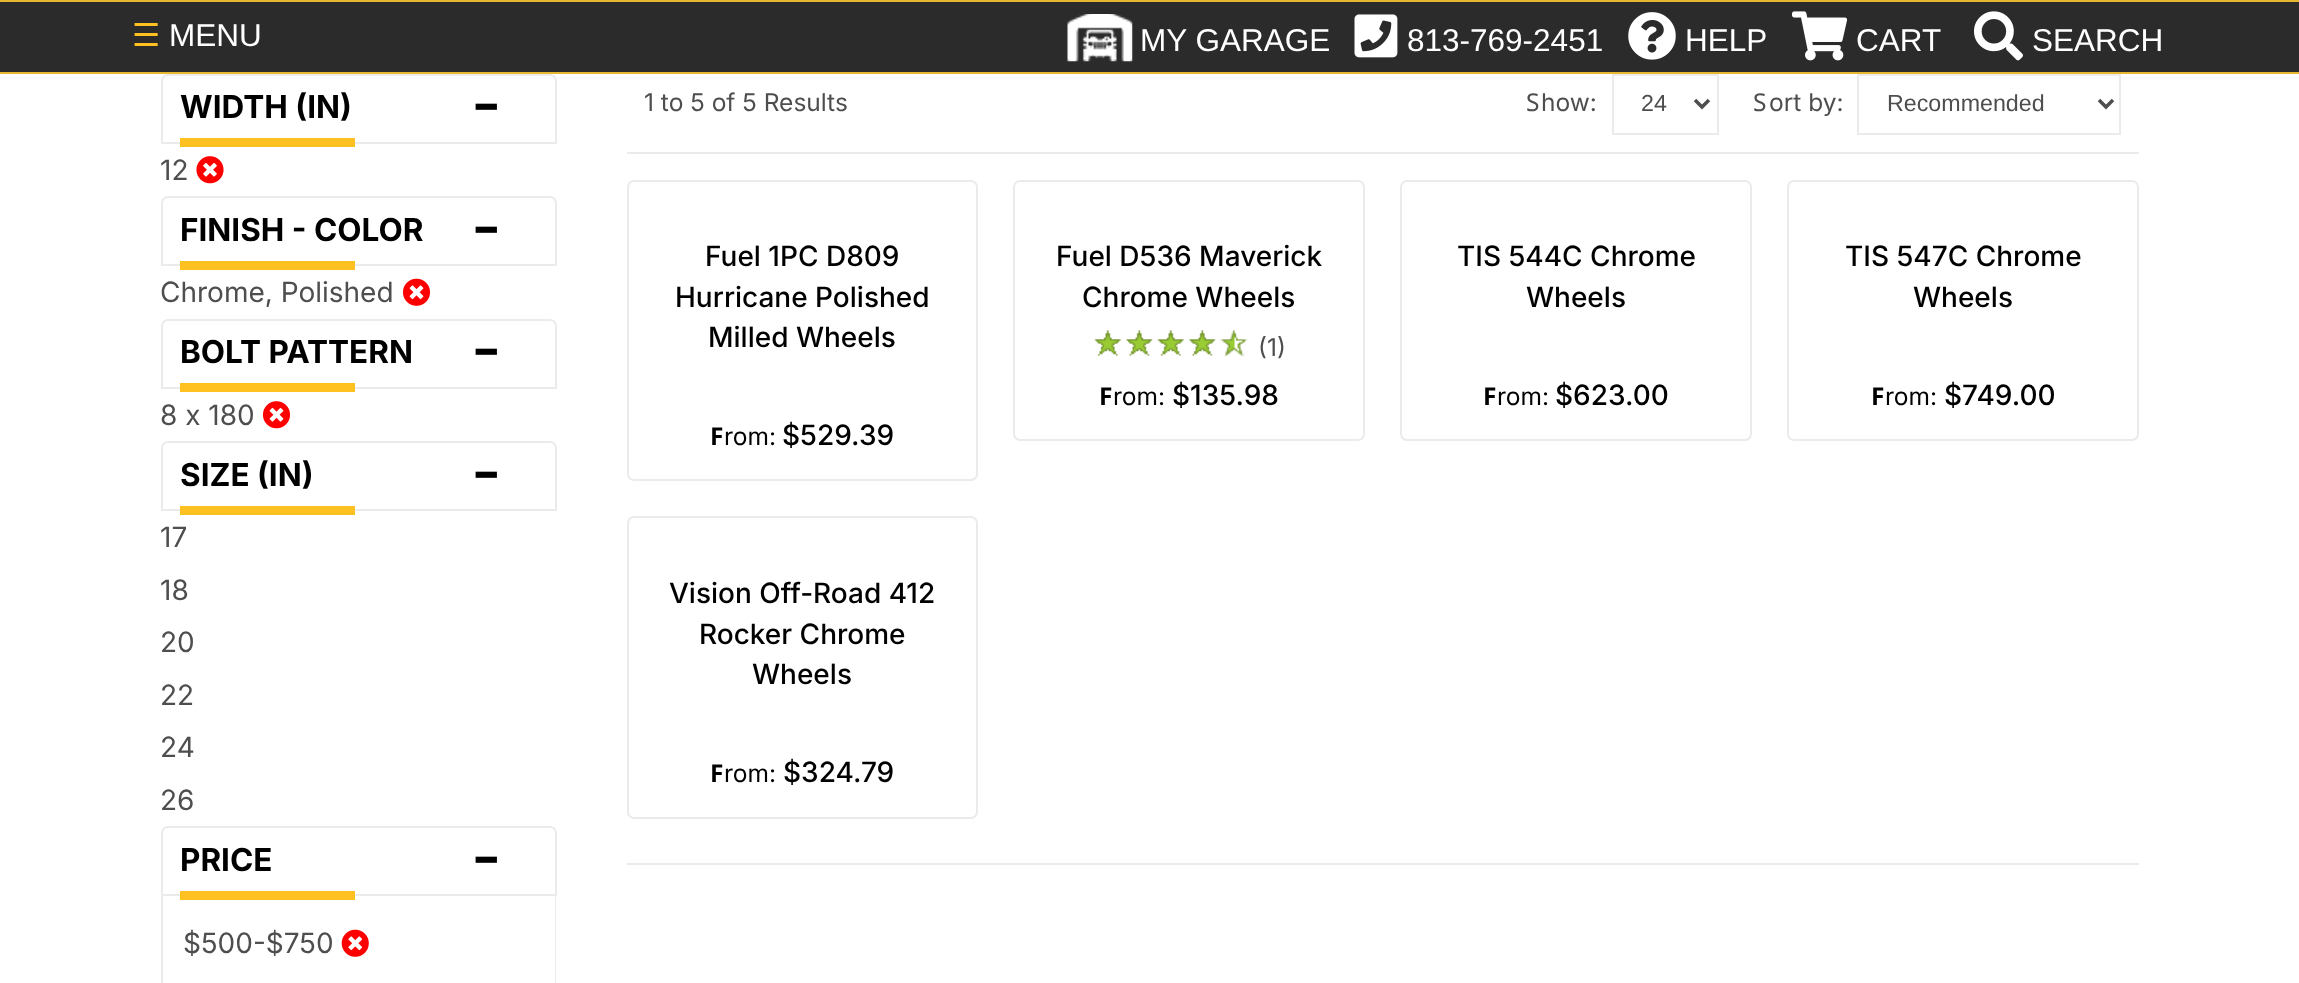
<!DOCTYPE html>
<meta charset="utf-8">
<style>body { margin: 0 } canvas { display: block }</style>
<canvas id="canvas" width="2299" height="983"></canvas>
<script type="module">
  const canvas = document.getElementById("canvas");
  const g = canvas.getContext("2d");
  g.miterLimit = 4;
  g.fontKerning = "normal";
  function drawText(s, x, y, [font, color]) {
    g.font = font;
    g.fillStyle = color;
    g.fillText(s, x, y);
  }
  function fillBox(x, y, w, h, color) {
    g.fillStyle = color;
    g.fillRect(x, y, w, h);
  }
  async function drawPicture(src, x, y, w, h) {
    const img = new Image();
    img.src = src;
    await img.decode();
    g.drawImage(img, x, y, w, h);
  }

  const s1 = ["31.5px DejaVu Sans", "#FFC122"];
  const s2 = ["31.5px Liberation Sans", "#FFFFFF"];
  const s3 = ["bold 31.5px Inter", "#000000"];
  const s4 = ["500 66px Inter", "#000000"];
  const s5 = ["28px Inter", "#4E4E4E"];
  const s6 = ["24.5px Inter", "#4E4E4E"];
  const s7 = ["24.5px Noto Sans", "#4E4E4E"];
  const s8 = ["23.25px Liberation Sans", "#4E4E4E"];
  const s9 = ["500 28px Inter", "#000000"];
  const s10 = ["bold 24.5px Noto Sans", "#000000"];
  const s11 = ["24.5px Inter", "#000000"];

  fillBox(0, 0, 2299, 983, "#FFFFFF");
  fillBox(0, 2, 2299, 70, "#2B2B2B");
  fillBox(0, 0, 2299, 2, "#E7B72F");
  fillBox(0, 72, 2299, 2, "#E7B72F");
  drawText("☰", 132, 46, s1);
  drawText("MENU", 169, 46, s2);
  await drawPicture("pic1.png", 1067, 14, 66, 48);
  drawText("MY GARAGE", 1140, 51, s2);
  await drawPicture("pic2.png", 1354, 14, 44, 44);
  drawText("813-769-2451", 1407, 51, s2);
  await drawPicture("pic3.png", 1628, 12, 48, 48);
  drawText("HELP", 1685, 51, s2);
  await drawPicture("pic4.png", 1792, 11, 56, 50);
  drawText("CART", 1856, 51, s2);
  await drawPicture("pic5.png", 1974, 11, 49, 50);
  drawText("SEARCH", 2032, 51, s2);
  g.beginPath();
  g.roundRect(162, 75, 394, 68, [6, 6, 0, 0]);
  g.strokeStyle = "#EBEBEB";
  g.lineWidth = 2;
  g.stroke();
  drawText("WIDTH (IN)", 180, 118, s3);
  drawText("-", 471, 127, s4);
  fillBox(180, 138, 175, 9, "#FFC122");
  drawText("12", 160, 180, s5);
  await drawPicture("pic6.png", 196, 156, 28, 28);
  g.beginPath();
  g.roundRect(162, 197, 394, 68, [6, 6, 0, 0]);
  g.stroke();
  drawText("FINISH - COLOR", 180, 241, s3);
  drawText("-", 471, 250, s4);
  fillBox(180, 261, 175, 9, "#FFC122");
  drawText("Chrome, Polished", 160, 302, s5);
  await drawPicture("pic7.png", 402, 278, 29, 28);
  g.beginPath();
  g.roundRect(162, 320, 394, 68, [6, 6, 0, 0]);
  g.stroke();
  drawText("BOLT PATTERN", 180, 363, s3);
  drawText("-", 471, 372, s4);
  fillBox(180, 383, 175, 9, "#FFC122");
  drawText("8 x 180", 160, 425, s5);
  await drawPicture("pic8.png", 262, 401, 29, 28);
  g.beginPath();
  g.roundRect(162, 442, 394, 68, [6, 6, 0, 0]);
  g.stroke();
  drawText("SIZE (IN)", 180, 486, s3);
  drawText("-", 471, 495, s4);
  fillBox(180, 506, 175, 9, "#FFC122");
  drawText("17", 160, 547, s5);
  drawText("18", 160, 600, s5);
  drawText("20", 160, 652, s5);
  drawText("22", 160, 705, s5);
  drawText("24", 160, 757, s5);
  drawText("26", 160, 810, s5);
  g.beginPath();
  g.roundRect(162, 827, 394, 68, [6, 6, 0, 0]);
  g.stroke();
  drawText("PRICE", 180, 871, s3);
  drawText("-", 471, 880, s4);
  g.fillStyle = "#EBEBEB";
  g.beginPath();
  g.moveTo(161, 896);
  g.lineTo(556, 896);
  g.lineTo(556, 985);
  g.bezierCurveTo(556, 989, 553, 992, 550, 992);
  g.lineTo(168, 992);
  g.bezierCurveTo(164, 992, 161, 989, 161, 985);
  g.closePath();
  g.moveTo(163, 896);
  g.lineTo(555, 896);
  g.lineTo(555, 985);
  g.bezierCurveTo(555, 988, 552, 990, 550, 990);
  g.lineTo(168, 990);
  g.bezierCurveTo(165, 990, 163, 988, 163, 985);
  g.closePath();
  g.fill("evenodd");
  fillBox(180, 891, 175, 9, "#FFC122");
  drawText("$500-$750", 183, 953, s5);
  await drawPicture("pic9.png", 341, 929, 28, 28);
  fillBox(627, 152, 1512, 2, "#EBEBEB");
  drawText("1 to 5 of 5 Results", 644, 111, s6);
  drawText("S", 1526, 111, s7);
  drawText("how:", 1541, 111, s6);
  g.strokeRect(1613, 75, 105, 59);
  g.beginPath();
  g.moveTo(1695, 100);
  g.lineTo(1702, 107);
  g.lineTo(1709, 100);
  g.strokeStyle = "#4E4E4E";
  g.lineWidth = 3.5;
  g.stroke();
  drawText("24", 1641, 111, s8);
  drawText("S", 1753, 111, s7);
  drawText("ort by:", 1769, 111, s6);
  g.strokeStyle = "#EBEBEB";
  g.lineWidth = 2;
  g.strokeRect(1858, 75, 262, 59);
  g.beginPath();
  g.moveTo(2099, 100);
  g.lineTo(2106, 107);
  g.lineTo(2113, 100);
  g.strokeStyle = "#4E4E4E";
  g.lineWidth = 3.5;
  g.stroke();
  drawText("Recommended", 1887, 111, s8);
  g.beginPath();
  g.roundRect(628, 181, 349, 299, 6);
  g.strokeStyle = "#EBEBEB";
  g.lineWidth = 2;
  g.stroke();
  drawText("Fuel 1PC D809", 705, 266, s9);
  drawText("Hurricane Polished", 675, 307, s9);
  drawText("Milled Wheels", 708, 347, s9);
  drawText("F", 710, 445, s10);
  drawText("rom:", 724, 445, s11);
  drawText("$529.39", 782, 445, s9);
  g.beginPath();
  g.roundRect(1014, 181, 350, 259, 6);
  g.stroke();
  drawText("Fuel D536 Maverick", 1056, 266, s9);
  drawText("Chrome Wheels", 1082, 307, s9);
  await drawPicture("pic10.png", 1094, 330, 27, 26);
  await drawPicture("pic11.png", 1126, 330, 27, 26);
  await drawPicture("pic10.png", 1157, 330, 27, 26);
  await drawPicture("pic11.png", 1189, 330, 27, 26);
  await drawPicture("pic12.png", 1219, 330, 29, 27);
  drawText("(1)", 1258, 356, s6);
  drawText("F", 1099, 405, s10);
  drawText("rom:", 1113, 405, s11);
  drawText("$135.98", 1172, 405, s9);
  g.beginPath();
  g.roundRect(1401, 181, 350, 259, 6);
  g.stroke();
  drawText("TIS 544C Chrome", 1457, 266, s9);
  drawText("Wheels", 1526, 307, s9);
  drawText("F", 1483, 405, s10);
  drawText("rom:", 1497, 405, s11);
  drawText("$623.00", 1555, 405, s9);
  g.beginPath();
  g.roundRect(1788, 181, 350, 259, 6);
  g.stroke();
  drawText("TIS 547C Chrome", 1845, 266, s9);
  drawText("Wheels", 1913, 307, s9);
  drawText("F", 1871, 405, s10);
  drawText("rom:", 1885, 405, s11);
  drawText("$749.00", 1944, 405, s9);
  g.beginPath();
  g.roundRect(628, 517, 349, 301, 6);
  g.stroke();
  drawText("Vision Off-Road 412", 669, 603, s9);
  drawText("Rocker Chrome", 699, 644, s9);
  drawText("Wheels", 752, 684, s9);
  drawText("F", 710, 782, s10);
  drawText("rom:", 724, 782, s11);
  drawText("$324.79", 783, 782, s9);
  fillBox(627, 863, 1512, 2, "#EBEBEB");
</script>
